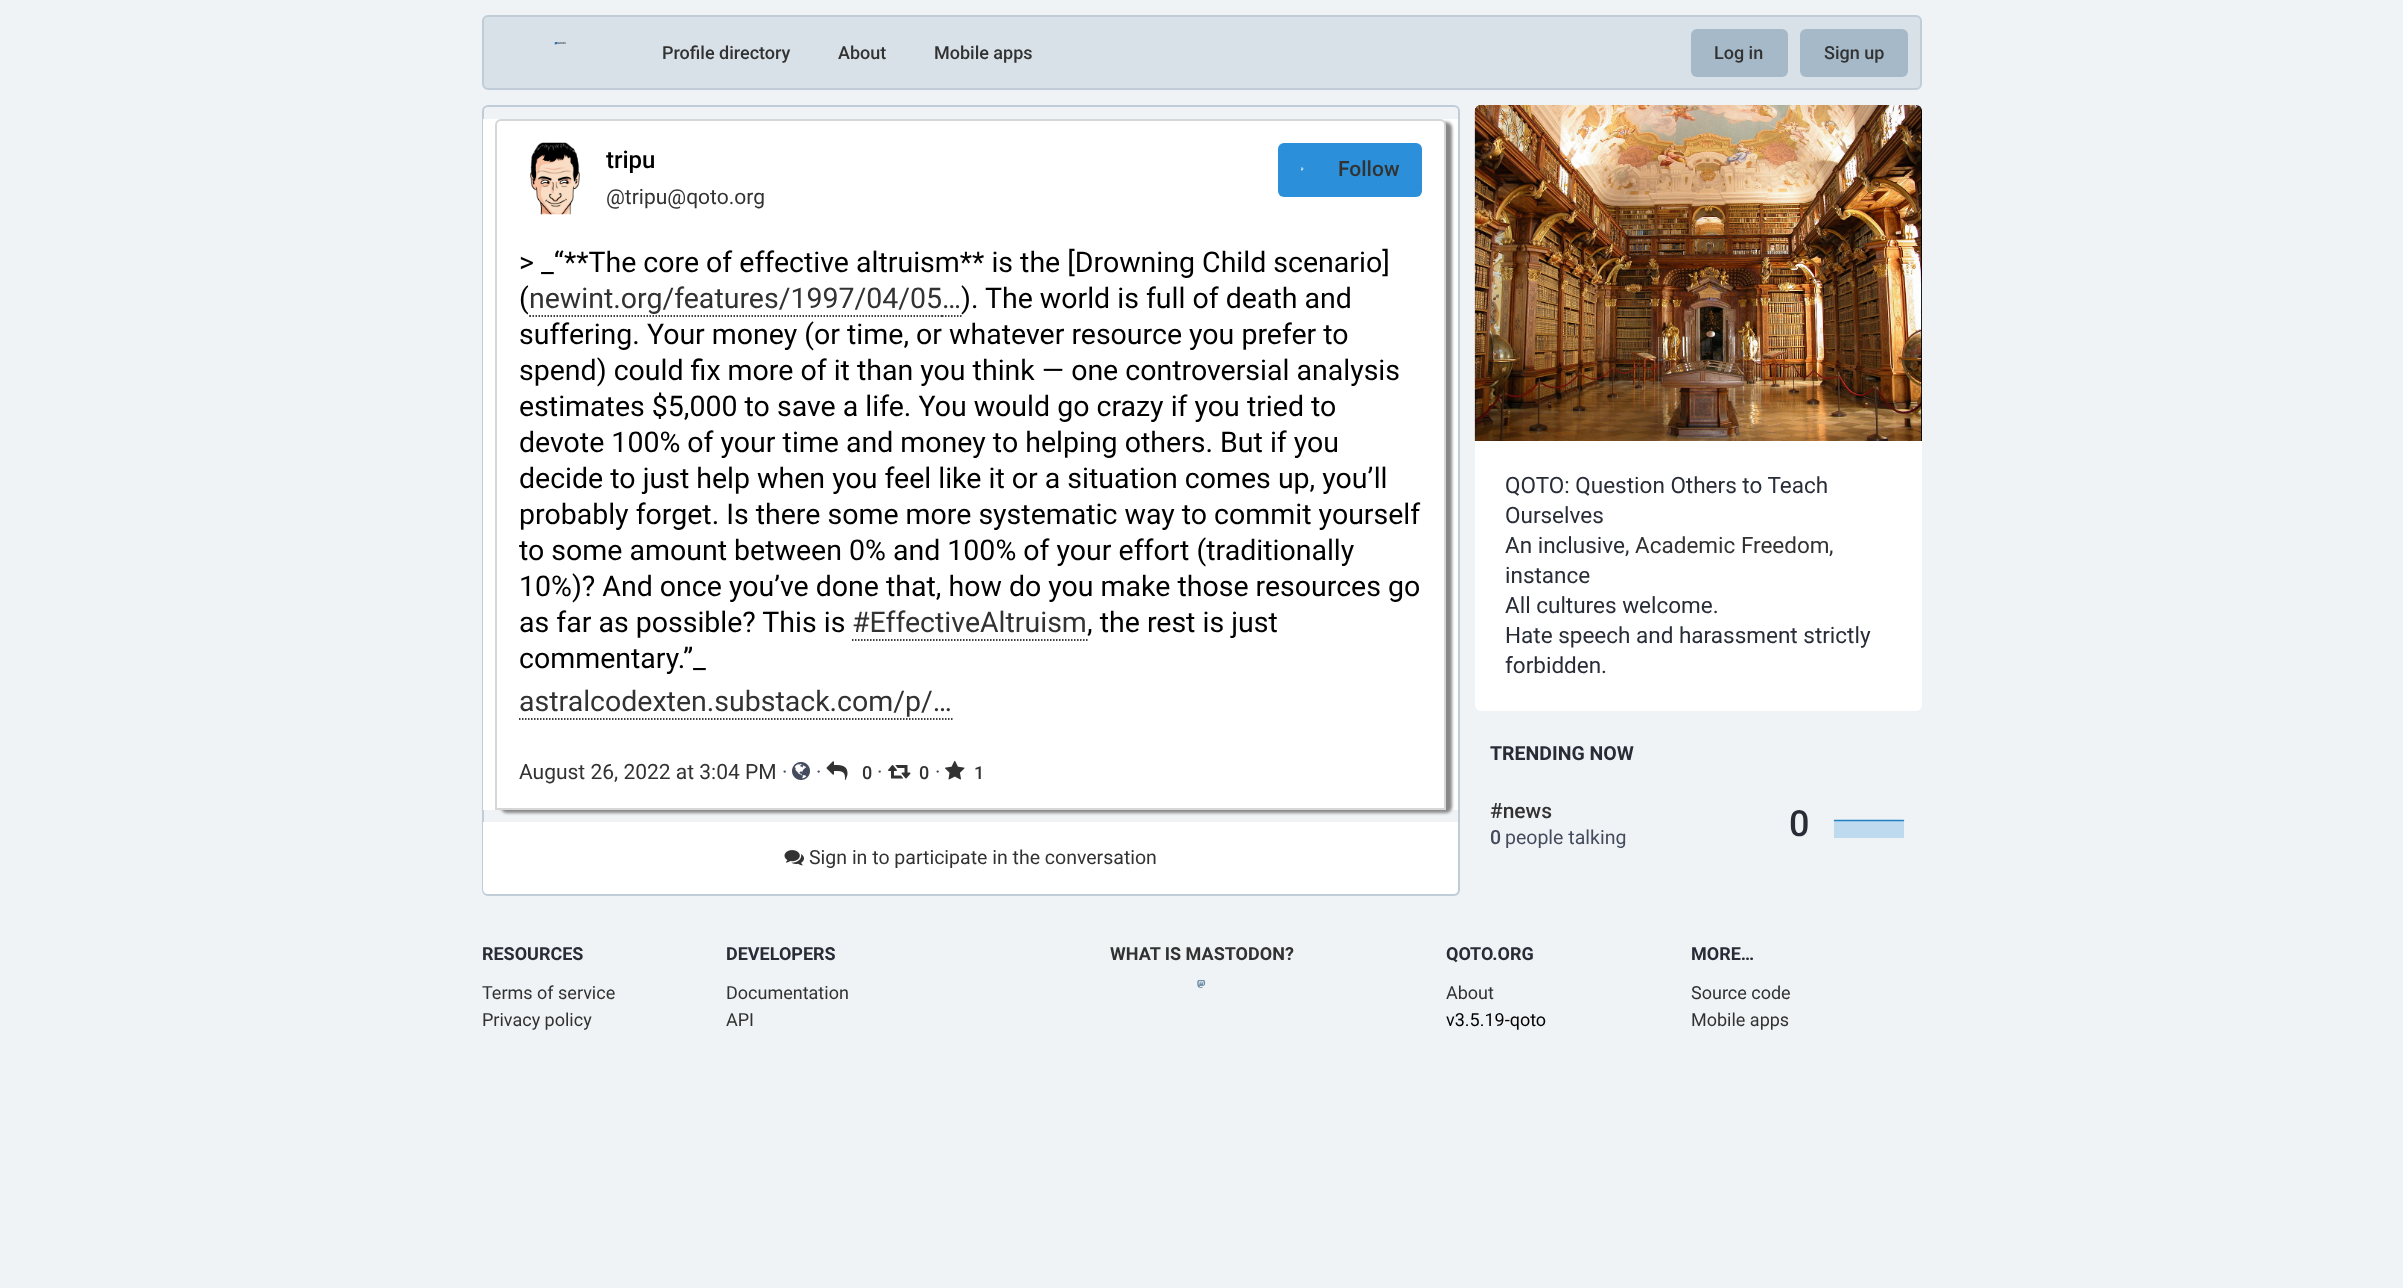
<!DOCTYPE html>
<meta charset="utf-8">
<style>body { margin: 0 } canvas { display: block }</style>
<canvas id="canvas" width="2403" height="1288"></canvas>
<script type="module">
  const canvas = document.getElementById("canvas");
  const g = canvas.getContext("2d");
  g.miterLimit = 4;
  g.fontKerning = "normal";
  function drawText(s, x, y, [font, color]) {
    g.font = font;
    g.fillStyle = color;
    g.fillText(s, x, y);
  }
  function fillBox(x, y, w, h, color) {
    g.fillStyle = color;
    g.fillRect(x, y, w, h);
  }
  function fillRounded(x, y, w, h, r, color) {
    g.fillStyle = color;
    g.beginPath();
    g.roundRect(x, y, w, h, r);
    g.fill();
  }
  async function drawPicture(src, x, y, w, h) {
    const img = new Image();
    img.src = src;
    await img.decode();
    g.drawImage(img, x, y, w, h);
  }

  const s1 = ["500 18px Roboto", "#323232"];
  const s2 = ["500 24px Roboto", "#000000"];
  const s3 = ["21px Roboto", "#323232"];
  const s4 = ["500 21px Roboto", "#323232"];
  const s5 = ["28.5px Roboto", "#000000"];
  const s6 = ["28.5px Roboto", "#323232"];
  const s7 = ["21px Roboto", "#444B5D"];
  const s8 = ["19.5px Roboto", "#323232"];
  const s9 = ["22.5px Roboto", "#282C37"];
  const s10 = ["22.5px Roboto", "#323232"];
  const s11 = ["bold 19.5px Roboto", "#282C37"];
  const s12 = ["500 19.5px Roboto", "#444B5D"];
  const s13 = ["19.5px Roboto", "#444B5D"];
  const s14 = ["500 36px Roboto", "#282C37"];
  const s15 = ["bold 18px Roboto", "#282C37"];
  const s16 = ["18px Roboto", "#323232"];
  const s17 = ["bold 18px Roboto", "#323232"];
  const s18 = ["18px Roboto", "#000000"];

  fillBox(0, 0, 2403, 1288, "#EFF3F5");
  g.fillStyle = "#D9E1E8";
  g.beginPath();
  g.roundRect(483, 16, 1438, 73, 5);
  g.fill();
  g.strokeStyle = "#C0CDD9";
  g.lineWidth = 2;
  g.stroke();
  await drawPicture("pic1.png", 554, 42, 12, 3);
  drawText("Profile directory", 662, 59, s1);
  drawText("About", 838, 59, s1);
  drawText("Mobile apps", 934, 59, s1);
  fillRounded(1691, 29, 97, 48, 6, "#A6B9C9");
  drawText("Log in", 1714, 59, s1);
  fillRounded(1800, 29, 108, 48, 6, "#A6B9C9");
  drawText("Sign up", 1824, 59, s1);
  g.beginPath();
  g.roundRect(483, 106, 976, 789, 5);
  g.stroke();
  fillBox(483, 119, 975, 691, "#FFFFFF");
  g.fillStyle = "#888888";
  g.filter = "blur(1.5px)";
  g.beginPath();
  g.roundRect(501, 122, 951, 691, 6);
  g.fill();
  g.filter = "none";
  g.fillStyle = "#FFFFFF";
  g.beginPath();
  g.roundRect(496, 120, 949, 689, [5, 5, 0, 0]);
  g.fill();
  g.strokeStyle = "#D6D6D6";
  g.stroke();
  await drawPicture("pic2.png", 530, 142, 50, 73);
  drawText("tripu", 606, 168, s2);
  drawText("@tripu@qoto.org", 606, 204, s3);
  fillRounded(1278, 143, 144, 54, 6, "#2B90D9");
  await drawPicture("pic3.png", 1301, 167, 3, 4);
  drawText("Follow", 1338, 176, s4);
  drawText("> _“**The core of effective altruism** is the [Drowning Child scenario]", 519, 272, s5);
  drawText("(", 519, 308, s5);
  drawText("newint.org/features/1997/04/05…", 529, 308, s6);
  g.beginPath();
  g.moveTo(529.5, 316);
  g.lineTo(942, 316);
  g.strokeStyle = "#000000";
  g.lineWidth = 1.5;
  g.setLineDash([1.5, 1.5]);
  g.stroke();
  fillBox(530, 315, 412, 2, "#FFFFFF");
  g.beginPath();
  g.moveTo(529.5, 316);
  g.lineTo(942, 316);
  g.stroke();
  g.beginPath();
  g.moveTo(942, 316);
  g.lineTo(961.5, 316);
  g.stroke();
  drawText("). The world is full of death and", 961, 308, s5);
  drawText("suffering. Your money (or time, or whatever resource you prefer to", 519, 344, s5);
  drawText("spend) could fix more of it than you think — one controversial analysis", 519, 380, s5);
  drawText("estimates $5,000 to save a life. You would go crazy if you tried to", 519, 416, s5);
  drawText("devote 100% of your time and money to helping others. But if you", 519, 452, s5);
  drawText("decide to just help when you feel like it or a situation comes up, you’ll", 519, 488, s5);
  drawText("probably forget. Is there some more systematic way to commit yourself", 519, 524, s5);
  drawText("to some amount between 0% and 100% of your effort (traditionally", 519, 560, s5);
  drawText("10%)? And once you’ve done that, how do you make those resources go", 519, 596, s5);
  drawText("as far as possible? This is", 519, 632, s5);
  drawText("#EffectiveAltruism", 852, 632, s6);
  g.beginPath();
  g.moveTo(852, 640);
  g.lineTo(870, 640);
  g.stroke();
  g.beginPath();
  g.moveTo(870, 640);
  g.lineTo(1087.5, 640);
  g.stroke();
  drawText(", the rest is just", 1087, 632, s5);
  drawText("commentary.”_", 519, 668, s5);
  drawText("astralcodexten.substack.com/p/…", 519, 711, s6);
  g.beginPath();
  g.moveTo(519, 719);
  g.lineTo(933, 719);
  g.stroke();
  g.beginPath();
  g.moveTo(933, 719);
  g.lineTo(952.5, 719);
  g.stroke();
  drawText("August 26, 2022 at 3:04 PM", 519, 779, s3);
  drawText("·", 782, 779, s7);
  await drawPicture("pic4.png", 792, 762, 18, 18);
  drawText("·", 816, 779, s7);
  await drawPicture("pic5.png", 826, 761, 22, 19);
  drawText("0", 862, 779, s1);
  drawText("·", 877, 779, s7);
  await drawPicture("pic6.png", 888, 765, 23, 14);
  drawText("0", 919, 779, s1);
  drawText("·", 935, 779, s7);
  await drawPicture("pic7.png", 945, 760, 20, 20);
  drawText("1", 974, 779, s1);
  g.fillStyle = "#FFFFFF";
  g.beginPath();
  g.roundRect(483, 822, 975, 72, [0, 0, 5, 5]);
  g.fill();
  await drawPicture("pic8.png", 784, 850, 20, 16);
  drawText("Sign in to participate in the conversation", 809, 864, s8);
  g.fillStyle = "#000000";
  g.beginPath();
  g.roundRect(1475, 105, 447, 336, [6, 6, 0, 0]);
  g.fill();
  await drawPicture("pic9.png", 1474, 105, 448, 336);
  g.fillStyle = "#FFFFFF";
  g.beginPath();
  g.roundRect(1475, 441, 447, 270, [0, 0, 6, 6]);
  g.fill();
  drawText("QOTO: Question Others to Teach", 1505, 493, s9);
  drawText("Ourselves", 1505, 523, s9);
  drawText("An inclusive,", 1505, 553, s9);
  drawText("Academic Freedom", 1635, 553, s10);
  drawText(",", 1829, 553, s9);
  drawText("instance", 1505, 583, s9);
  drawText("All cultures welcome.", 1505, 613, s9);
  drawText("Hate speech and harassment strictly", 1505, 643, s9);
  drawText("forbidden.", 1505, 673, s9);
  drawText("TRENDING NOW", 1490, 760, s11);
  drawText("#news", 1490, 818, s4);
  drawText("0", 1490, 844, s12);
  drawText("people talking", 1505, 844, s13);
  drawText("0", 1789, 836, s14);
  g.fillStyle = "#BEDAEE";
  g.beginPath();
  g.moveTo(1834, 820);
  g.lineTo(1904, 820);
  g.lineTo(1904, 838);
  g.lineTo(1834, 838);
  g.lineTo(1834, 820);
  g.fill();
  g.beginPath();
  g.moveTo(1834.5, 820.5);
  g.lineTo(1903.5, 820.5);
  g.strokeStyle = "#2380C3";
  g.lineCap = "round";
  g.lineJoin = "round";
  g.setLineDash([]);
  g.stroke();
  drawText("RESOURCES", 482, 960, s15);
  drawText("Terms of service", 482, 999, s16);
  drawText("Privacy policy", 482, 1026, s16);
  drawText("DEVELOPERS", 726, 960, s15);
  drawText("Documentation", 726, 999, s16);
  drawText("API", 726, 1026, s16);
  drawText("WHAT IS MASTODON?", 1110, 960, s17);
  await drawPicture("pic10.png", 1197, 980, 9, 8);
  drawText("QOTO.ORG", 1446, 960, s15);
  drawText("About", 1446, 999, s16);
  drawText("v3.5.19-qoto", 1446, 1026, s18);
  drawText("MORE…", 1691, 960, s15);
  drawText("Source code", 1691, 999, s16);
  drawText("Mobile apps", 1691, 1026, s16);
</script>
